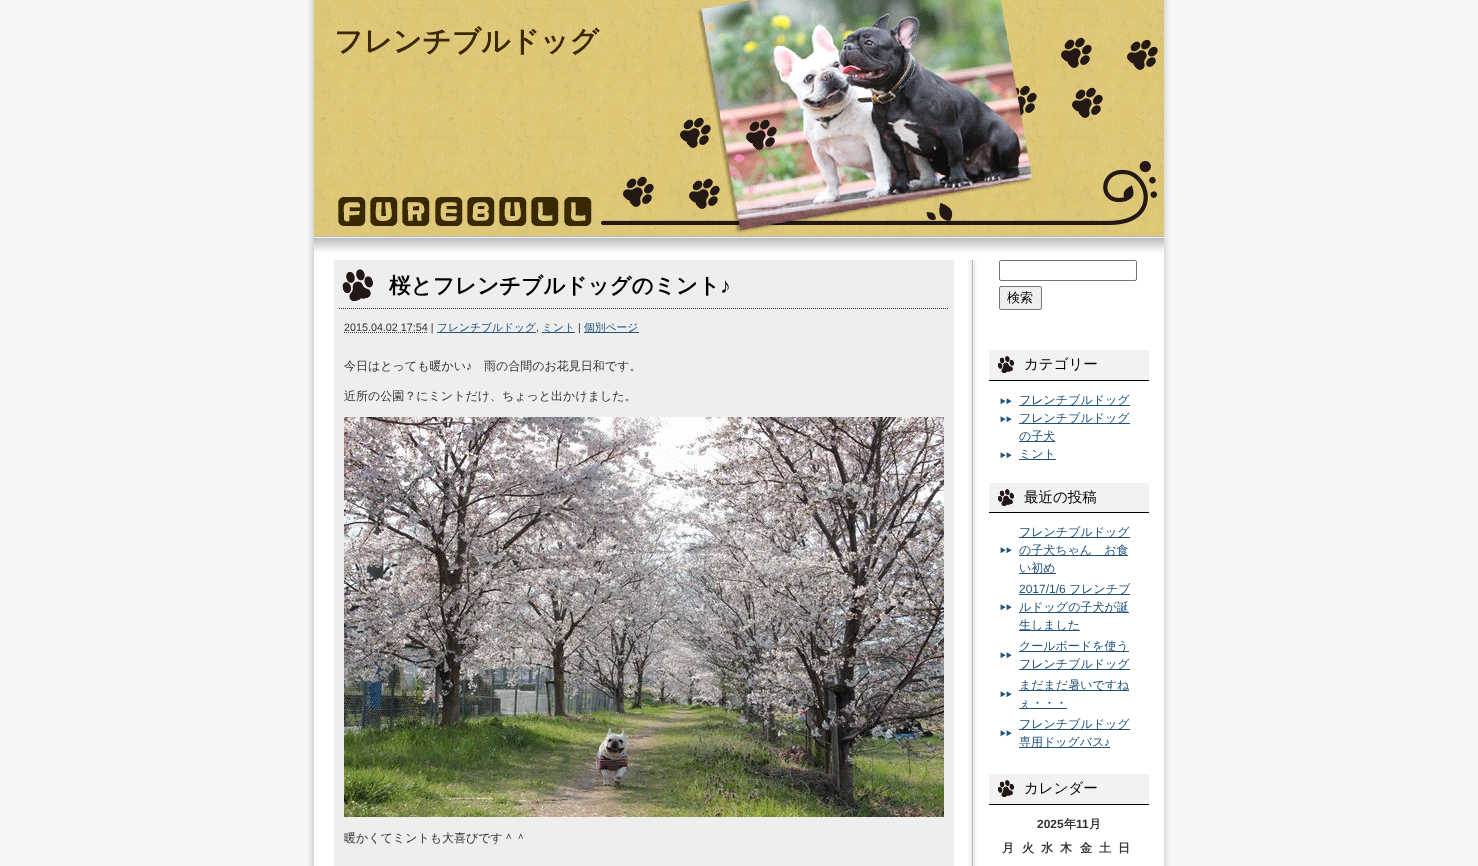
<!DOCTYPE html>
<meta charset="utf-8">
<style>body { margin: 0 } canvas { display: block }</style>
<canvas id="canvas" width="1478" height="866"></canvas>
<script type="module">
  const canvas = document.getElementById("canvas");
  const g = canvas.getContext("2d");
  g.miterLimit = 4;
  g.fontKerning = "normal";
  function drawText(s, x, y, [font, color]) {
    g.font = font;
    g.fillStyle = color;
    g.fillText(s, x, y);
  }
  function fillBox(x, y, w, h, color) {
    g.fillStyle = color;
    g.fillRect(x, y, w, h);
  }
  async function drawPicture(src, x, y, w, h) {
    const img = new Image();
    img.src = src;
    await img.decode();
    g.drawImage(img, x, y, w, h);
  }

  const s1 = ["bold 28.75px WenQuanYi Zen Hei", "#392800"];
  const s2 = ["bold 21.6px WenQuanYi Zen Hei", "#000000"];
  const s3 = ["bold 21.6px Liberation Sans", "#000000"];
  const s4 = ["10.75px Liberation Sans", "#333333"];
  const s5 = ["500 10.75px WenQuanYi Zen Hei", "#21527A"];
  const s6 = ["500 12px WenQuanYi Zen Hei", "#333333"];
  const s7 = ["12px Liberation Sans", "#333333"];
  const s8 = ["500 13px WenQuanYi Zen Hei", "#000000"];
  const s9 = ["500 14.5px WenQuanYi Zen Hei", "#000000"];
  const s10 = ["500 12px WenQuanYi Zen Hei", "#21527A"];
  const s11 = ["12px Liberation Sans", "#21527A"];
  const s12 = ["bold 12px Liberation Sans", "#333333"];
  const s13 = ["bold 12px WenQuanYi Zen Hei", "#333333"];

  fillBox(0, 0, 1478, 866, "#F6F6F6");
  await drawPicture("pic1.png", 308, 0, 861, 866);
  fillBox(314, 253, 850, 613, "#FFFFFF");
  await drawPicture("pic2.png", 314, 0, 850, 236);
  drawText("フレンチブルドッグ", 334, 51, s1);
  await drawPicture("pic3.png", 314, 236, 850, 17);
  await drawPicture("pic4.png", 968, 260, 9, 606);
  fillBox(334, 260, 620, 606, "#EEEEEE");
  await drawPicture("pic5.png", 342, 269, 31, 33);
  g.beginPath();
  g.moveTo(339, 308.5);
  g.lineTo(949, 308.5);
  g.strokeStyle = "#333333";
  g.setLineDash([1, 1]);
  g.stroke();
  drawText("桜とフレンチブルドッグのミント", 389, 293, s2);
  drawText("♪", 720, 293, s3);
  g.beginPath();
  g.moveTo(344, 332.5);
  g.lineTo(428, 332.5);
  g.stroke();
  drawText("2015.04.02 17:54 |", 344, 331, s4);
  fillBox(437, 332, 99, 1, "#21527A");
  drawText("フレンチブルドッグ", 437, 331, s5);
  drawText(",", 536, 331, s4);
  fillBox(542, 332, 33, 1, "#21527A");
  drawText("ミント", 542, 331, s5);
  drawText("|", 578, 331, s4);
  fillBox(584, 332, 55, 1, "#21527A");
  drawText("個別ページ", 584, 331, s5);
  drawText("今日はとっても暖かい", 344, 370, s6);
  drawText("♪", 466, 370, s7);
  drawText("雨の合間のお花見日和です。", 484, 370, s6);
  drawText("近所の公園？にミントだけ、ちょっと出かけました。", 344, 400, s6);
  await drawPicture("pic6.png", 344, 417, 600, 400);
  drawText("暖かくてミントも大喜びです＾＾", 344, 842, s6);
  g.beginPath();
  g.roundRect(999.5, 260.5, 137, 20, 1.5);
  g.strokeStyle = "#767676";
  g.setLineDash([]);
  g.stroke();
  g.fillStyle = "#EFEFEF";
  g.beginPath();
  g.roundRect(999.5, 286.5, 42, 23, 1.5);
  g.fill();
  g.stroke();
  drawText("検索", 1007, 302, s8);
  fillBox(989, 350, 160, 30, "#F2F2F2");
  await drawPicture("pic7.png", 997, 356, 18, 18);
  fillBox(989, 380, 160, 1, "#000000");
  drawText("カテゴリー", 1024, 369, s9);
  await drawPicture("pic8.png", 1000, 398, 12, 7);
  fillBox(1019, 405, 111, 1, "#21527A");
  drawText("フレンチブルドッグ", 1019, 404, s10);
  await drawPicture("pic8.png", 1000, 416, 12, 7);
  fillBox(1019, 423, 111, 1, "#21527A");
  drawText("フレンチブルドッグ", 1019, 422, s10);
  fillBox(1019, 441, 36, 1, "#21527A");
  drawText("の子犬", 1019, 440, s10);
  await drawPicture("pic8.png", 1000, 452, 12, 7);
  fillBox(1019, 459, 37, 1, "#21527A");
  drawText("ミント", 1019, 458, s10);
  fillBox(989, 483, 160, 29, "#F2F2F2");
  await drawPicture("pic7.png", 997, 489, 18, 18);
  fillBox(989, 512, 160, 1, "#000000");
  drawText("最近の投稿", 1024, 502, s9);
  await drawPicture("pic8.png", 1000, 547, 12, 7);
  fillBox(1019, 537, 111, 1, "#21527A");
  drawText("フレンチブルドッグ", 1019, 536, s10);
  fillBox(1019, 555, 109, 1, "#21527A");
  drawText("の子犬ちゃん　お食", 1019, 554, s10);
  fillBox(1019, 573, 37, 1, "#21527A");
  drawText("い初め", 1019, 572, s10);
  await drawPicture("pic8.png", 1000, 604, 12, 7);
  drawText("2017/1/6", 1019, 593, s11);
  fillBox(1019, 594, 111, 1, "#21527A");
  drawText("フレンチブ", 1069, 593, s10);
  fillBox(1019, 612, 110, 1, "#21527A");
  drawText("ルドッグの子犬が誕", 1019, 611, s10);
  fillBox(1019, 630, 61, 1, "#21527A");
  drawText("生しました", 1019, 629, s10);
  await drawPicture("pic8.png", 1000, 652, 12, 7);
  fillBox(1019, 651, 110, 1, "#21527A");
  drawText("クールボードを使う", 1019, 650, s10);
  fillBox(1019, 669, 111, 1, "#21527A");
  drawText("フレンチブルドッグ", 1019, 668, s10);
  await drawPicture("pic8.png", 1000, 691, 12, 7);
  fillBox(1019, 690, 110, 1, "#21527A");
  drawText("まだまだ暑いですね", 1019, 689, s10);
  fillBox(1019, 708, 48, 1, "#21527A");
  drawText("ぇ・・・", 1019, 707, s10);
  await drawPicture("pic8.png", 1000, 730, 12, 7);
  fillBox(1019, 729, 111, 1, "#21527A");
  drawText("フレンチブルドッグ", 1019, 728, s10);
  fillBox(1019, 747, 91, 1, "#21527A");
  drawText("専用ドッグバス", 1019, 746, s10);
  drawText("♪", 1104, 746, s11);
  fillBox(989, 774, 160, 30, "#F2F2F2");
  await drawPicture("pic7.png", 997, 780, 18, 18);
  fillBox(989, 804, 160, 1, "#000000");
  drawText("カレンダー", 1024, 793, s9);
  drawText("2025", 1037, 828, s12);
  drawText("年", 1064, 828, s13);
  drawText("11", 1076, 828, s12);
  drawText("月", 1089, 828, s13);
  drawText("月", 1002, 852, s13);
  drawText("火", 1022, 852, s13);
  drawText("水", 1041, 852, s13);
  drawText("木", 1060, 852, s13);
  drawText("金", 1080, 852, s13);
  drawText("土", 1099, 852, s13);
  drawText("日", 1118, 852, s13);
</script>
